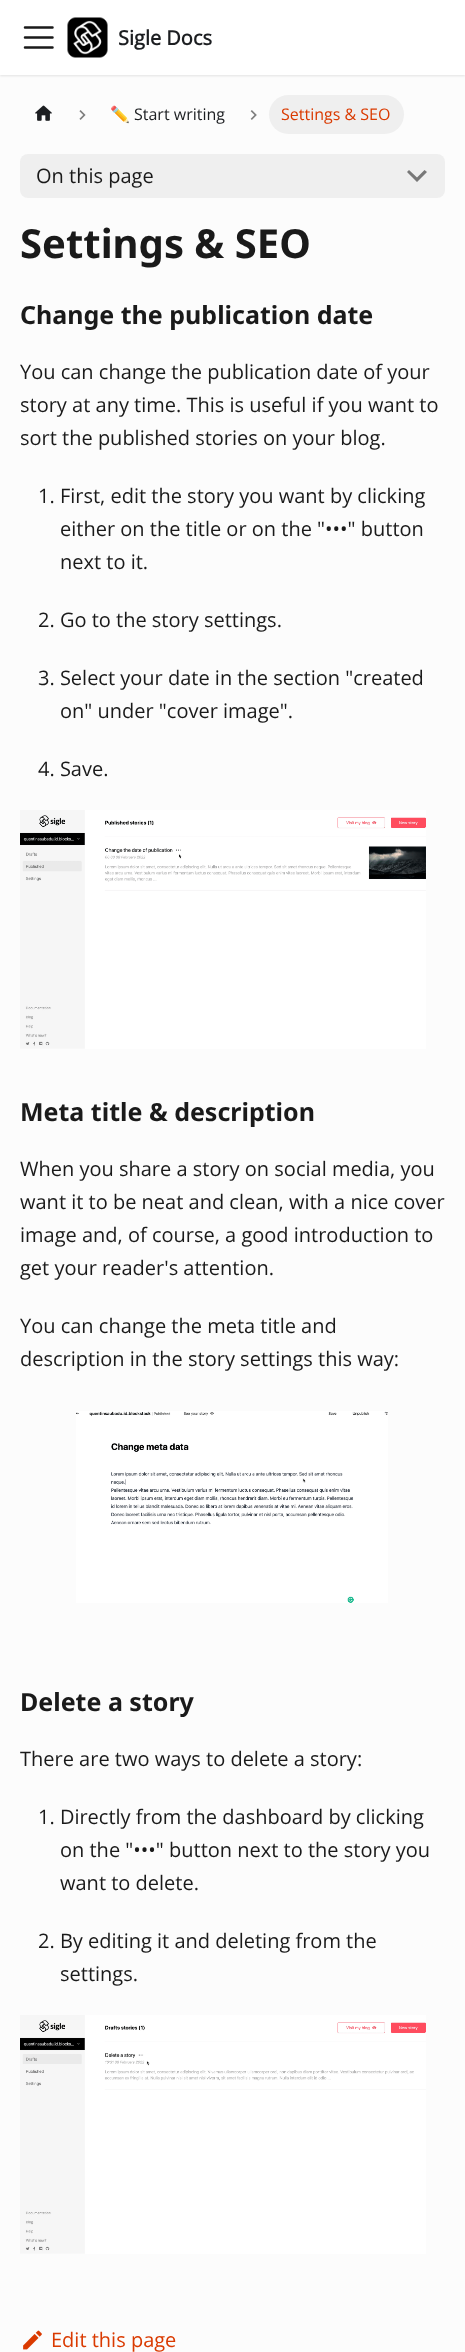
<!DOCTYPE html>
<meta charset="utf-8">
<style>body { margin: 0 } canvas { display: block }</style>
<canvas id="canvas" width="465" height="2352"></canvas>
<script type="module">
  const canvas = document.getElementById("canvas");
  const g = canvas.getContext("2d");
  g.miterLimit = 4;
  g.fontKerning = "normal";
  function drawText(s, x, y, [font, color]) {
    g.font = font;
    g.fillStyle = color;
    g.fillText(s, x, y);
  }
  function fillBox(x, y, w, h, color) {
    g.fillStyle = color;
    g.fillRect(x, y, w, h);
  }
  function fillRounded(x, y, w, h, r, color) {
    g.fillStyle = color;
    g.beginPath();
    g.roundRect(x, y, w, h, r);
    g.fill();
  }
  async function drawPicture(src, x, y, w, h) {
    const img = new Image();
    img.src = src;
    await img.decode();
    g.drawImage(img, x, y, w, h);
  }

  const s1 = ["bold 20px Open Sans", "#1C1E21"];
  const s2 = ["16px Noto Color Emoji", "#1C1E21"];
  const s3 = ["16px Open Sans", "#1C1E21"];
  const s4 = ["16px Open Sans", "#DA3A00"];
  const s5 = ["20px Open Sans", "#1A1A1A"];
  const s6 = ["bold 40px Noto Sans", "#1A1A1A"];
  const s7 = ["bold 25px Noto Sans", "#1A1A1A"];
  const s8 = ["20px Open Sans", "#DA3A00"];

  fillBox(0, 0, 465, 2352, "#FCFCFC");
  g.fillStyle = "rgba(0, 0, 0, 0.1)";
  g.filter = "blur(1px)";
  g.beginPath();
  g.rect(0, 1, 465, 75);
  g.fill();
  g.filter = "none";
  fillBox(0, 0, 465, 75, "#FFFFFF");
  g.beginPath();
  g.moveTo(25, 27.5);
  g.lineTo(52.5, 27.5);
  g.moveTo(25, 37.5);
  g.lineTo(52.5, 37.5);
  g.moveTo(25, 47.5);
  g.lineTo(52.5, 47.5);
  g.strokeStyle = "#1A1A1A";
  g.lineWidth = 2.5;
  g.lineCap = "round";
  g.stroke();
  await drawPicture("pic1.png", 67, 17, 41, 41);
  drawText("Sigle Docs", 118, 45, s1);
  await drawPicture("pic2.png", 35, 105, 17, 16);
  await drawPicture("pic3.png", 79, 110, 7, 10);
  drawText("✏️", 110, 120, s2);
  drawText("Start writing", 134, 120, s3);
  await drawPicture("pic4.png", 250, 110, 7, 10);
  fillRounded(269, 95, 135, 39, 19.5, "#EFEFEF");
  drawText("Settings & SEO", 281, 120, s4);
  fillRounded(20, 154, 425, 44, 8, "#EFEFEF");
  drawText("On this page", 36, 183, s5);
  g.fillStyle = "#787878";
  g.beginPath();
  g.moveTo(424.5, 170);
  g.lineTo(417, 177.5);
  g.lineTo(409, 170);
  g.lineTo(407, 172);
  g.lineTo(417, 182);
  g.lineTo(427, 172);
  g.closePath();
  g.fill();
  drawText("Settings & SEO", 20, 258, s6);
  drawText("Change the publication date", 20, 324, s7);
  drawText("You can change the publication date of your", 20, 379, s5);
  drawText("story at any time. This is useful if you want to", 20, 412, s5);
  drawText("sort the published stories on your blog.", 20, 445, s5);
  drawText("1. First, edit the story you want by clicking", 38, 503, s5);
  drawText("either on the title or on the \"•••\" button", 60, 536, s5);
  drawText("next to it.", 60, 569, s5);
  drawText("2. Go to the story settings.", 38, 627, s5);
  drawText("3. Select your date in the section \"created", 38, 685, s5);
  drawText("on\" under \"cover image\".", 60, 718, s5);
  drawText("4. Save.", 38, 776, s5);
  await drawPicture("pic5.png", 20, 810, 406, 239);
  drawText("Meta title & description", 20, 1121, s7);
  drawText("When you share a story on social media, you", 20, 1176, s5);
  drawText("want it to be neat and clean, with a nice cover", 20, 1209, s5);
  drawText("image and, of course, a good introduction to", 20, 1242, s5);
  drawText("get your reader's attention.", 20, 1275, s5);
  drawText("You can change the meta title and", 20, 1333, s5);
  drawText("description in the story settings this way:", 20, 1366, s5);
  await drawPicture("pic6.png", 76, 1411, 312, 192);
  drawText("Delete a story", 20, 1711, s7);
  drawText("There are two ways to delete a story:", 20, 1766, s5);
  drawText("1. Directly from the dashboard by clicking", 38, 1824, s5);
  drawText("on the \"•••\" button next to the story you", 60, 1857, s5);
  drawText("want to delete.", 60, 1890, s5);
  drawText("2. By editing it and deleting from the", 38, 1948, s5);
  drawText("settings.", 60, 1981, s5);
  await drawPicture("pic7.png", 20, 2015, 406, 239);
  await drawPicture("pic8.png", 23, 2330, 19, 20);
  drawText("Edit this page", 51, 2347, s8);
</script>
